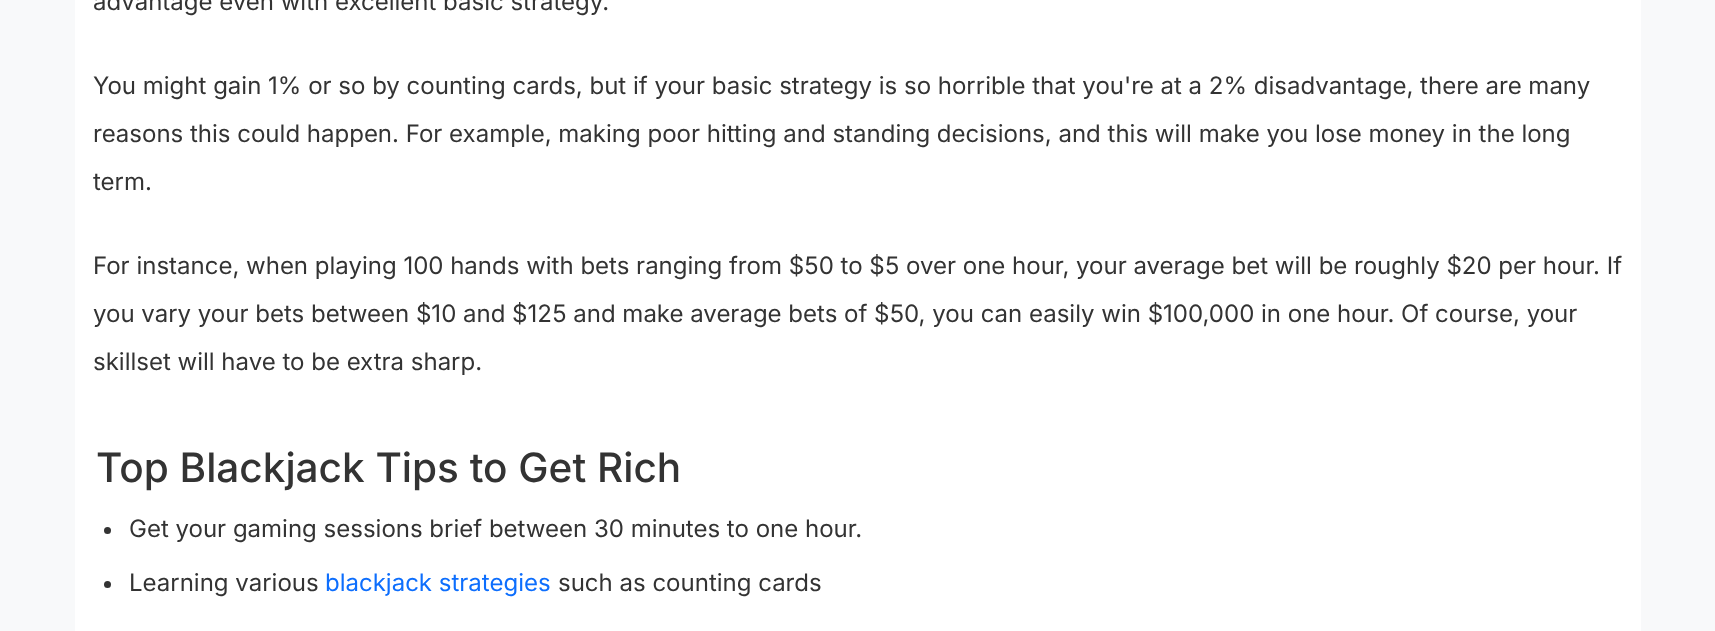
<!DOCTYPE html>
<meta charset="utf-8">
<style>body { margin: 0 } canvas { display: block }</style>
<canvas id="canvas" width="1715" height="631"></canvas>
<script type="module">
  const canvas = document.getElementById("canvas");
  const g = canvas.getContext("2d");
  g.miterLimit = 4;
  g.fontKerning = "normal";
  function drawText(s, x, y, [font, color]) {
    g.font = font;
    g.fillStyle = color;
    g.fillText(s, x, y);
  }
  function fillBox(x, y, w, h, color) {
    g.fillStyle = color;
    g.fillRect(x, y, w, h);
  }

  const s1 = ["24px Inter", "#333333"];
  const s2 = ["500 40.5px Inter", "#333333"];
  const s3 = ["24px Inter", "#0D6EFD"];

  fillBox(0, 0, 1715, 631, "#F8F9FA");
  fillBox(75, 0, 1566, 631, "#FFFFFF");
  drawText("advantage even with excellent basic strategy.", 93, 10, s1);
  drawText("You might gain 1% or so by counting cards, but if your basic strategy is so horrible that you're at a 2% disadvantage, there are many", 93, 94, s1);
  drawText("reasons this could happen. For example, making poor hitting and standing decisions, and this will make you lose money in the long", 93, 142, s1);
  drawText("term.", 93, 190, s1);
  drawText("For instance, when playing 100 hands with bets ranging from $50 to $5 over one hour, your average bet will be roughly $20 per hour. If", 93, 274, s1);
  drawText("you vary your bets between $10 and $125 and make average bets of $50, you can easily win $100,000 in one hour. Of course, your", 93, 322, s1);
  drawText("skillset will have to be extra sharp.", 93, 370, s1);
  drawText("Top Blackjack Tips to Get Rich", 96, 482, s2);
  g.beginPath();
  g.arc(107.5, 530.5, 3.5, 0, Math.PI * 2);
  g.fill();
  drawText("Get your gaming sessions brief between 30 minutes to one hour.", 129, 537, s1);
  g.beginPath();
  g.arc(107.5, 584.5, 3.5, 0, Math.PI * 2);
  g.fill();
  drawText("Learning various", 129, 591, s1);
  drawText("blackjack strategies", 325, 591, s3);
  drawText("such as counting cards", 558, 591, s1);
</script>
